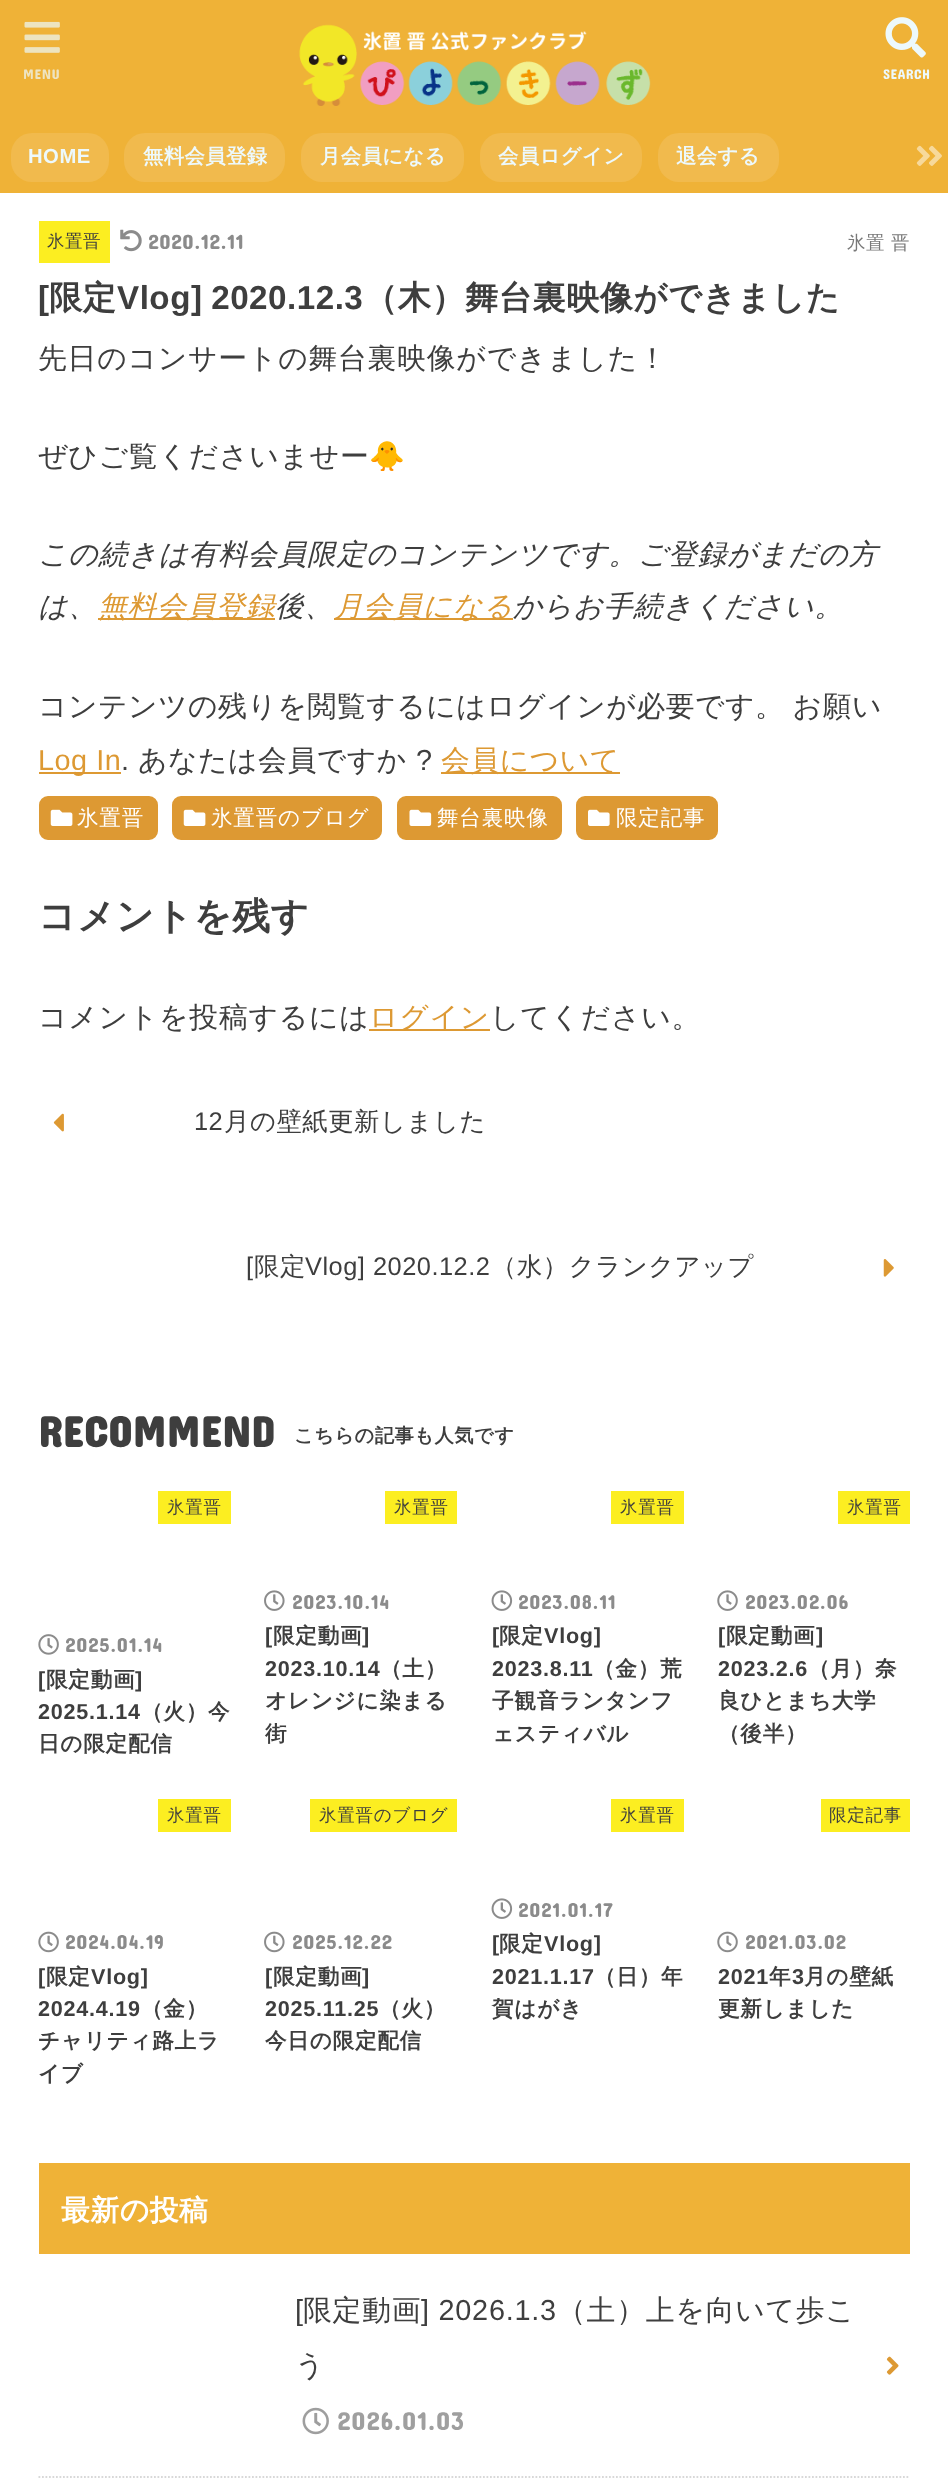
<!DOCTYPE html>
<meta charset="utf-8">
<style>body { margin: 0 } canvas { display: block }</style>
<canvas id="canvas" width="948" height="2482"></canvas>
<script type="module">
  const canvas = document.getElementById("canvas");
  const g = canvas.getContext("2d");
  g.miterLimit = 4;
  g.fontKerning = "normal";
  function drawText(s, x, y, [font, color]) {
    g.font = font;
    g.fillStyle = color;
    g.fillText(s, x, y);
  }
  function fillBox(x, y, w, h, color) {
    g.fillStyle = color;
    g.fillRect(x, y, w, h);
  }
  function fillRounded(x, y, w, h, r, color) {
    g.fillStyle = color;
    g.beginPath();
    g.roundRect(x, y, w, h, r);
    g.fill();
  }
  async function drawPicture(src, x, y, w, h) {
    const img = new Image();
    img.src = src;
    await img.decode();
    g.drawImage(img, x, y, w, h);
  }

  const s1 = ["14px Concert One", "#EEE4C1"];
  const s2 = ["14px Concert One", "#EDF9FC"];
  const s3 = ["bold 20.25px Liberation Sans", "#EDF9FC"];
  const s4 = ["bold 20.25px WenQuanYi Zen Hei", "#EDF9FC"];
  const s5 = ["500 17.5px WenQuanYi Zen Hei", "#3E3E3E"];
  const s6 = ["20.75px Concert One", "#8B8B8B"];
  const s7 = ["500 18.5px WenQuanYi Zen Hei", "#787878"];
  const s8 = ["bold 33.2px Liberation Sans", "#3E3E3E"];
  const s9 = ["bold 33.2px WenQuanYi Zen Hei", "#3E3E3E"];
  const s10 = ["500 28.85px WenQuanYi Zen Hei", "#3E3E3E"];
  const s11 = ["28.85px Noto Color Emoji", "#3E3E3E"];
  const s12 = ["italic 500 28.85px WenQuanYi Zen Hei", "#3E3E3E"];
  const s13 = ["italic 500 28.85px WenQuanYi Zen Hei", "#DD9933"];
  const s14 = ["28.85px Liberation Sans", "#DD9933"];
  const s15 = ["28.85px Liberation Sans", "#3E3E3E"];
  const s16 = ["500 28.85px WenQuanYi Zen Hei", "#DD9933"];
  const s17 = ["500 21.6px WenQuanYi Zen Hei", "#FFFFFF"];
  const s18 = ["bold 37.5px WenQuanYi Zen Hei", "#3E3E3E"];
  const s19 = ["25.4px Liberation Sans", "#3E3E3E"];
  const s20 = ["500 25.4px WenQuanYi Zen Hei", "#3E3E3E"];
  const s21 = ["bold 43.25px Concert One", "#3E3E3E"];
  const s22 = ["bold 19.25px WenQuanYi Zen Hei", "#3E3E3E"];
  const s23 = ["20.25px Concert One", "#8B8B8B"];
  const s24 = ["bold 21.6px Liberation Sans", "#3E3E3E"];
  const s25 = ["bold 21.6px WenQuanYi Zen Hei", "#3E3E3E"];
  const s26 = ["bold 28.85px WenQuanYi Zen Hei", "#FFFFFF"];
  const s27 = ["26px Concert One", "#9F9F9F"];

  fillBox(0, 0, 948, 2482, "#EFB237");
  await drawPicture("pic1.png", 24, 21, 36, 32);
  g.letterSpacing = "0.5px";
  drawText("MENU", 23, 79, s1);
  await drawPicture("pic2.png", 299, 24, 352, 82);
  await drawPicture("pic3.png", 885, 17, 41, 41);
  drawText("SEARCH", 883, 79, s2);
  fillRounded(11, 133, 98, 49, 21, "#F1BA4D");
  drawText("HOME", 28, 163, s3);
  fillRounded(124, 133, 161, 49, 21, "#F1BA4D");
  drawText("無料会員登録", 143, 163, s4);
  fillRounded(301, 133, 163, 49, 21, "#F1BA4D");
  drawText("月会員になる", 320, 163, s4);
  fillRounded(480, 133, 162, 49, 21, "#F1BA4D");
  drawText("会員ログイン", 498, 163, s4);
  fillRounded(658, 133, 121, 49, 21, "#F1BA4D");
  drawText("退会する", 676, 163, s4);
  await drawPicture("pic4.png", 916, 145, 26, 21);
  fillBox(0, 193, 948, 2289, "#FFFFFF");
  fillBox(39, 221, 71, 42, "#FCEE21");
  drawText("氷置晋", 47, 247, s5);
  await drawPicture("pic5.png", 120, 229, 22, 23);
  drawText("2020.12.11", 148, 249, s6);
  drawText("氷置 晋", 847, 249, s7);
  drawText("[", 38, 309, s8);
  drawText("限定", 49, 309, s9);
  g.wordSpacing = "-1px";
  drawText("Vlog] 2020.12.3", 117, 309, s8);
  g.wordSpacing = "0px";
  drawText("（木）舞台裏映像ができました", 364, 309, s9);
  g.letterSpacing = "0.75px";
  drawText("先日のコンサートの舞台裏映像ができました！", 38, 368, s10);
  drawText("ぜひご覧くださいませー", 38, 466, s10);
  drawText("🐥", 369, 466, s11);
  drawText("この続きは有料会員限定のコンテンツです。ご登録がまだの方", 38, 564, s12);
  drawText("は、", 38, 616, s12);
  fillBox(98, 618, 177, 2, "#DD9933");
  drawText("無料会員登録", 98, 616, s13);
  drawText("後、", 275, 616, s12);
  fillBox(334, 618, 179, 2, "#DD9933");
  drawText("月会員になる", 334, 616, s13);
  drawText("からお手続きください。", 513, 616, s12);
  g.letterSpacing = "0.5px";
  g.wordSpacing = "-1px";
  drawText("コンテンツの残りを閲覧するにはログインが必要です。 お願い", 38, 716, s10);
  fillBox(39, 772, 82, 2, "#DD9933");
  g.wordSpacing = "0px";
  drawText("Log In", 38, 770, s14);
  drawText(".", 121, 770, s15);
  drawText("あなたは会員ですか", 138, 770, s10);
  drawText("?", 416, 770, s15);
  fillBox(441, 772, 179, 2, "#DD9933");
  drawText("会員について", 441, 770, s16);
  g.beginPath();
  g.roundRect(40, 797, 117, 42, 8);
  g.fill();
  g.strokeStyle = "#DD9933";
  g.lineWidth = 2;
  g.stroke();
  await drawPicture("pic6.png", 50, 809, 23, 17);
  g.letterSpacing = "0.75px";
  drawText("氷置晋", 77, 825, s17);
  g.fillStyle = "#DD9933";
  g.beginPath();
  g.roundRect(173, 797, 208, 42, 8);
  g.fill();
  g.stroke();
  await drawPicture("pic6.png", 183, 809, 23, 17);
  drawText("氷置晋のブログ", 211, 825, s17);
  g.fillStyle = "#DD9933";
  g.beginPath();
  g.roundRect(398, 797, 163, 42, 8);
  g.fill();
  g.stroke();
  await drawPicture("pic7.png", 409, 809, 23, 17);
  drawText("舞台裏映像", 437, 825, s17);
  g.fillStyle = "#DD9933";
  g.beginPath();
  g.roundRect(577, 797, 140, 42, 8);
  g.fill();
  g.stroke();
  await drawPicture("pic8.png", 588, 809, 22, 17);
  drawText("限定記事", 616, 825, s17);
  g.letterSpacing = "0.5px";
  drawText("コメントを残す", 38, 929, s18);
  g.letterSpacing = "0.75px";
  drawText("コメントを投稿するには", 38, 1027, s10);
  fillBox(369, 1029, 121, 2, "#DD9933");
  drawText("ログイン", 369, 1027, s16);
  drawText("してください。", 490, 1027, s10);
  await drawPicture("pic9.png", 53, 1113, 11, 19);
  g.letterSpacing = "0.5px";
  drawText("12", 194, 1130, s19);
  drawText("月の壁紙更新しました", 224, 1130, s20);
  drawText("[", 246, 1275, s19);
  drawText("限定", 254, 1275, s20);
  drawText("Vlog] 2020.12.2", 305, 1275, s19);
  drawText("（水）クランクアップ", 491, 1275, s20);
  await drawPicture("pic10.png", 883, 1259, 11, 18);
  drawText("RECOMMEND", 38, 1447, s21);
  drawText("こちらの記事も人気です", 294, 1442, s22);
  fillBox(158, 1491, 73, 33, "#FCEE21");
  g.letterSpacing = "0.75px";
  drawText("氷置晋", 167, 1513, s5);
  await drawPicture("pic11.png", 38, 1634, 21, 21);
  drawText("2025.01.14", 65, 1652, s23);
  drawText("[", 38, 1687, s24);
  drawText("限定動画", 46, 1687, s25);
  drawText("]", 135, 1687, s24);
  drawText("2025.1.14", 38, 1719, s24);
  drawText("（火）今", 141, 1719, s25);
  drawText("日の限定配信", 38, 1751, s25);
  fillBox(385, 1491, 72, 33, "#FCEE21");
  drawText("氷置晋", 394, 1513, s5);
  await drawPicture("pic12.png", 264, 1590, 21, 21);
  drawText("2023.10.14", 292, 1609, s23);
  drawText("[", 265, 1643, s24);
  drawText("限定動画", 273, 1643, s25);
  drawText("]", 362, 1643, s24);
  drawText("2023.10.14", 265, 1676, s24);
  drawText("（土）", 380, 1676, s25);
  drawText("オレンジに染まる", 265, 1708, s25);
  drawText("街", 265, 1741, s25);
  fillBox(611, 1491, 73, 33, "#FCEE21");
  drawText("氷置晋", 620, 1513, s5);
  await drawPicture("pic13.png", 491, 1590, 22, 21);
  drawText("2023.08.11", 518, 1609, s23);
  drawText("[", 492, 1643, s24);
  drawText("限定", 499, 1643, s25);
  drawText("Vlog]", 544, 1643, s24);
  drawText("2023.8.11", 492, 1676, s24);
  drawText("（金）荒", 593, 1676, s25);
  drawText("子観音ランタンフ", 492, 1708, s25);
  drawText("ェスティバル", 492, 1741, s25);
  fillBox(838, 1491, 72, 33, "#FCEE21");
  drawText("氷置晋", 847, 1513, s5);
  await drawPicture("pic14.png", 717, 1590, 21, 21);
  drawText("2023.02.06", 745, 1609, s23);
  drawText("[", 718, 1643, s24);
  drawText("限定動画", 726, 1643, s25);
  drawText("]", 816, 1643, s24);
  drawText("2023.2.6", 718, 1676, s24);
  drawText("（月）奈", 808, 1676, s25);
  drawText("良ひとまち大学", 718, 1708, s25);
  drawText("（後半）", 718, 1741, s25);
  fillBox(158, 1799, 73, 33, "#FCEE21");
  drawText("氷置晋", 167, 1821, s5);
  await drawPicture("pic15.png", 38, 1931, 21, 22);
  drawText("2024.04.19", 65, 1949, s23);
  drawText("[", 38, 1984, s24);
  drawText("限定", 46, 1984, s25);
  drawText("Vlog]", 91, 1984, s24);
  drawText("2024.4.19", 38, 2016, s24);
  drawText("（金）", 141, 2016, s25);
  drawText("チャリティ路上ラ", 38, 2048, s25);
  drawText("イブ", 38, 2081, s25);
  fillBox(310, 1799, 147, 33, "#FCEE21");
  drawText("氷置晋のブログ", 319, 1821, s5);
  await drawPicture("pic16.png", 264, 1931, 21, 22);
  drawText("2025.12.22", 292, 1949, s23);
  drawText("[", 265, 1984, s24);
  drawText("限定動画", 273, 1984, s25);
  drawText("]", 362, 1984, s24);
  drawText("2025.11.25", 265, 2016, s24);
  drawText("（火）", 379, 2016, s25);
  drawText("今日の限定配信", 265, 2048, s25);
  fillBox(611, 1799, 73, 33, "#FCEE21");
  drawText("氷置晋", 620, 1821, s5);
  await drawPicture("pic17.png", 491, 1898, 22, 21);
  drawText("2021.01.17", 518, 1917, s23);
  drawText("[", 492, 1951, s24);
  drawText("限定", 499, 1951, s25);
  drawText("Vlog]", 544, 1951, s24);
  drawText("2021.1.17", 492, 1984, s24);
  drawText("（日）年", 594, 1984, s25);
  drawText("賀はがき", 492, 2016, s25);
  fillBox(821, 1799, 89, 33, "#FCEE21");
  drawText("限定記事", 829, 1821, s5);
  await drawPicture("pic18.png", 717, 1931, 21, 22);
  drawText("2021.03.02", 745, 1949, s23);
  drawText("2021", 718, 1984, s24);
  drawText("年", 769, 1984, s25);
  drawText("3", 792, 1984, s24);
  drawText("月の壁紙", 804, 1984, s25);
  drawText("更新しました", 718, 2016, s25);
  fillBox(39, 2163, 871, 91, "#EFB237");
  g.letterSpacing = "0.5px";
  drawText("最新の投稿", 61, 2220, s26);
  g.beginPath();
  g.moveTo(38.5, 2477);
  g.lineTo(910, 2477);
  g.strokeStyle = "#D8D8D8";
  g.lineWidth = 1.8;
  g.setLineDash([1.75, 1.75]);
  g.stroke();
  g.letterSpacing = "0.75px";
  drawText("[", 295, 2320, s15);
  drawText("限定動画", 303, 2320, s10);
  drawText("] 2026.1.3", 421, 2320, s15);
  drawText("（土）上を向いて歩こ", 557, 2320, s10);
  drawText("う", 295, 2375, s10);
  await drawPicture("pic19.png", 302, 2407, 27, 28);
  drawText("2026.01.03", 337, 2430, s27);
  await drawPicture("pic20.png", 886, 2356, 13, 19);
</script>
